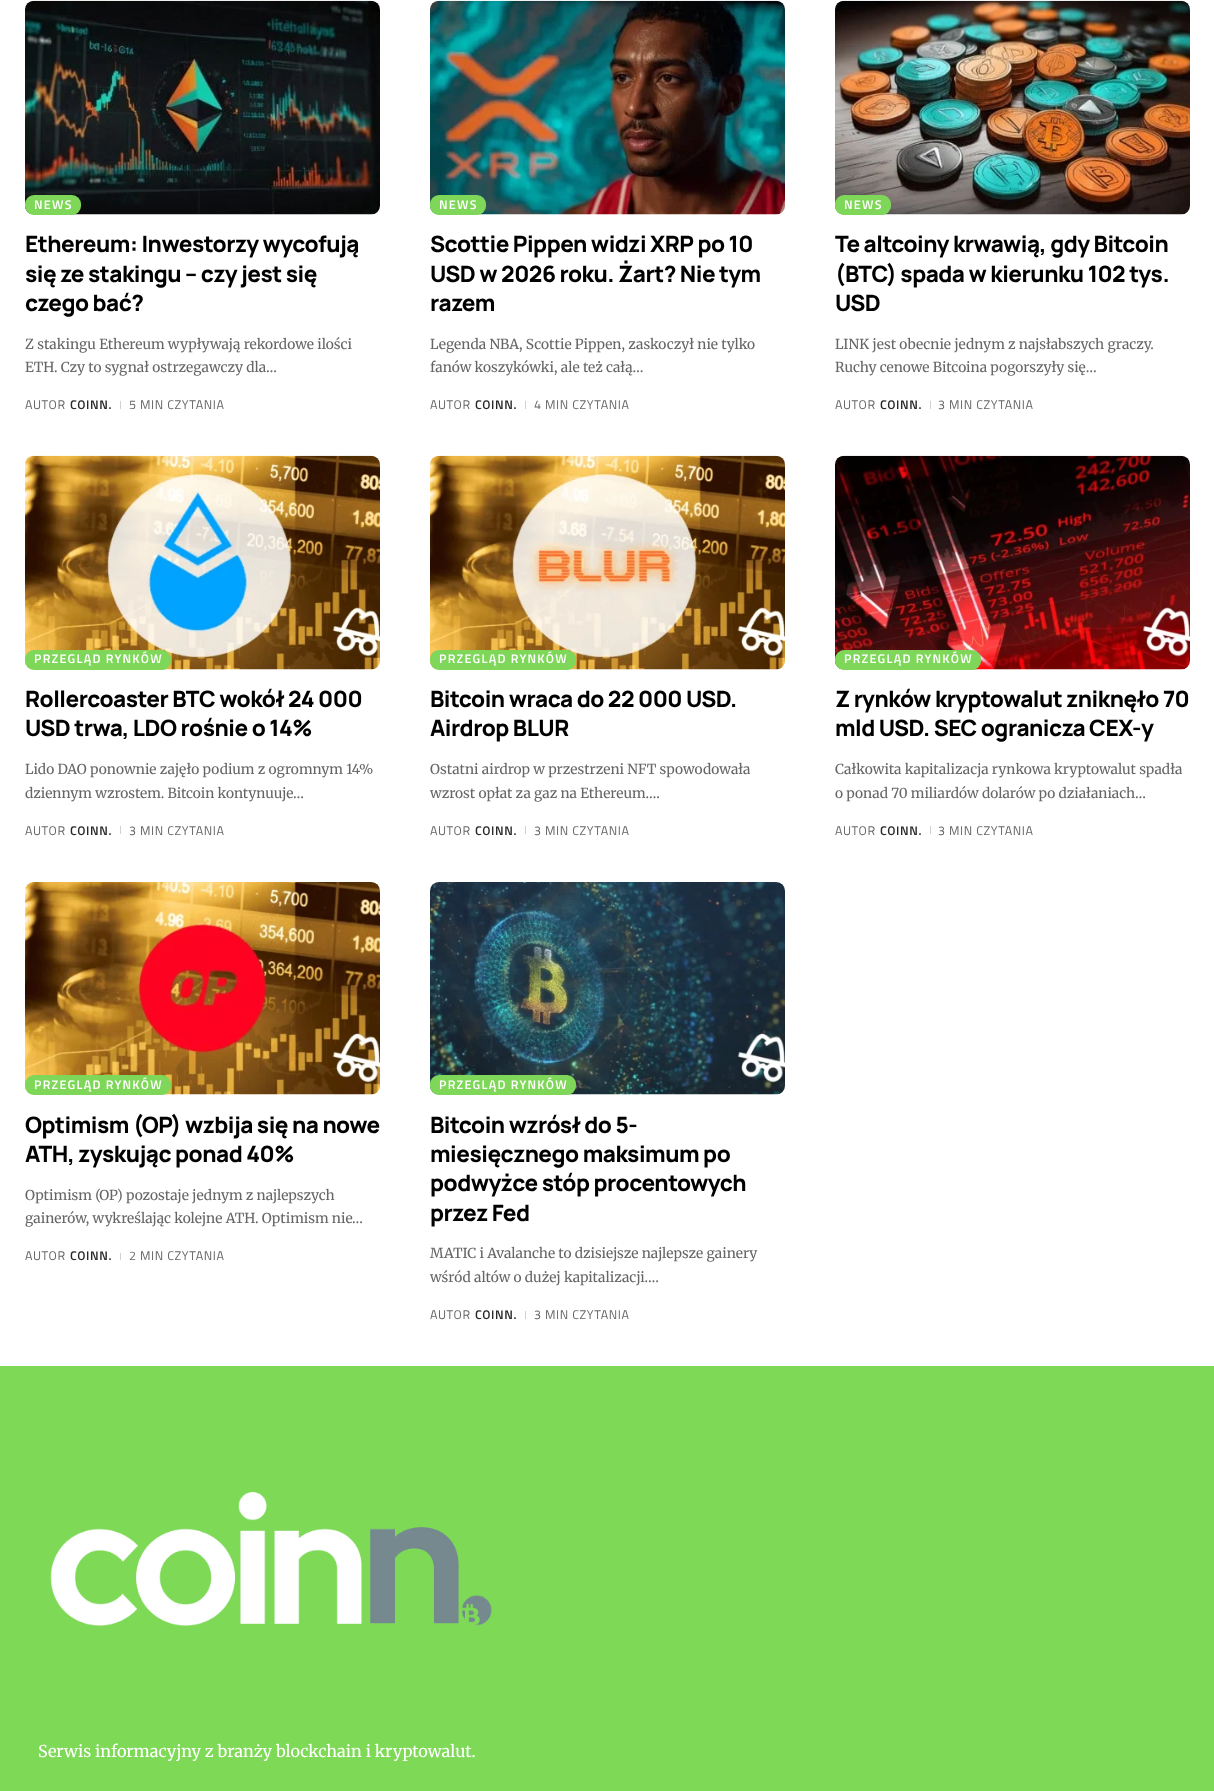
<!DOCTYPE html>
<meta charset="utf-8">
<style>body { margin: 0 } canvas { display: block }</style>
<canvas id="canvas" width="1214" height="1791"></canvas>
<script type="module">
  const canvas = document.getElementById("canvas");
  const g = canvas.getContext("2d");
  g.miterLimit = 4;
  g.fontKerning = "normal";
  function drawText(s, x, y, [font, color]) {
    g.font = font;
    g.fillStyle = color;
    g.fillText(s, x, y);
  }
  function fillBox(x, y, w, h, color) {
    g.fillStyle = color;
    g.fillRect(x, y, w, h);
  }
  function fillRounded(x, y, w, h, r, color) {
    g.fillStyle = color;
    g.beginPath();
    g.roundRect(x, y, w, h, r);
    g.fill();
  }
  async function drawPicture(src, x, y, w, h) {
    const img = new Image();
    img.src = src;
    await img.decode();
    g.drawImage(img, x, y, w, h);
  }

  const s1 = ["600 12.5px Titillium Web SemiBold", "#FFFFFF"];
  const s2 = ["800 22.5px Manrope", "#000000"];
  const s3 = ["13.75px Merriweather", "#666666"];
  const s4 = ["12.5px Titillium Web", "#666666"];
  const s5 = ["600 12.5px Titillium Web SemiBold", "#282828"];
  const s6 = ["16.25px Merriweather", "#FFFFFF"];

  fillBox(0, 0, 1214, 1791, "#FFFFFF");
  await drawPicture("pic1.png", 25, 0, 355, 215);
  fillRounded(25, 195, 56, 20, 9, "#7ED759");
  g.letterSpacing = "1.25px";
  drawText("NEWS", 34, 209, s1);
  g.letterSpacing = "-0.5px";
  drawText("Ethereum: Inwestorzy wycofują", 25, 252, s2);
  drawText("się ze stakingu – czy jest się", 25, 282, s2);
  drawText("czego bać?", 25, 311, s2);
  g.letterSpacing = "0px";
  drawText("Z stakingu Ethereum wypływają rekordowe ilości", 25, 349, s3);
  drawText("ETH. Czy to sygnał ostrzegawczy dla", 25, 372, s3);
  drawText("…", 266, 372, s3);
  g.letterSpacing = "0.6px";
  drawText("AUTOR", 25, 409, s4);
  drawText("COINN.", 70, 409, s5);
  fillBox(120, 401, 1, 8, "#D1D1D1");
  drawText("5 MIN CZYTANIA", 129, 409, s4);
  await drawPicture("pic2.png", 430, 0, 355, 215);
  fillRounded(430, 195, 56, 20, 9, "#7ED759");
  g.letterSpacing = "1.25px";
  drawText("NEWS", 439, 209, s1);
  g.letterSpacing = "-0.5px";
  drawText("Scottie Pippen widzi XRP po 10", 430, 252, s2);
  drawText("USD w 2026 roku. Żart? Nie tym", 430, 282, s2);
  drawText("razem", 430, 311, s2);
  g.letterSpacing = "0px";
  drawText("Legenda NBA, Scottie Pippen, zaskoczył nie tylko", 430, 349, s3);
  drawText("fanów koszykówki, ale też całą…", 430, 372, s3);
  g.letterSpacing = "0.6px";
  drawText("AUTOR", 430, 409, s4);
  drawText("COINN.", 475, 409, s5);
  fillBox(525, 401, 1, 8, "#D1D1D1");
  drawText("4 MIN CZYTANIA", 534, 409, s4);
  await drawPicture("pic3.png", 835, 0, 355, 215);
  fillRounded(835, 195, 56, 20, 9, "#7ED759");
  g.letterSpacing = "1.25px";
  drawText("NEWS", 844, 209, s1);
  g.letterSpacing = "-0.5px";
  drawText("Te altcoiny krwawią, gdy Bitcoin", 835, 252, s2);
  drawText("(BTC) spada w kierunku 102 tys.", 835, 282, s2);
  drawText("USD", 835, 311, s2);
  g.letterSpacing = "0px";
  drawText("LINK jest obecnie jednym z najsłabszych graczy.", 835, 349, s3);
  drawText("Ruchy cenowe Bitcoina pogorszyły się…", 835, 372, s3);
  g.letterSpacing = "0.6px";
  drawText("AUTOR", 835, 409, s4);
  drawText("COINN.", 880, 409, s5);
  fillBox(930, 401, 1, 8, "#D1D1D1");
  drawText("3 MIN CZYTANIA", 938, 409, s4);
  await drawPicture("pic4.png", 25, 455, 355, 215);
  fillRounded(25, 650, 146, 20, 9, "#7ED759");
  g.letterSpacing = "1.25px";
  drawText("PRZEGLĄD RYNKÓW", 34, 663, s1);
  g.letterSpacing = "-0.5px";
  drawText("Rollercoaster BTC wokół 24 000", 25, 707, s2);
  drawText("USD trwa, LDO rośnie o 14%", 25, 736, s2);
  g.letterSpacing = "0px";
  drawText("Lido DAO ponownie zajęło podium z ogromnym 14%", 25, 774, s3);
  drawText("dziennym wzrostem. Bitcoin kontynuuje", 25, 798, s3);
  drawText("…", 293, 798, s3);
  g.letterSpacing = "0.6px";
  drawText("AUTOR", 25, 835, s4);
  drawText("COINN.", 70, 835, s5);
  fillBox(120, 826, 1, 8, "#D1D1D1");
  drawText("3 MIN CZYTANIA", 129, 835, s4);
  await drawPicture("pic5.png", 430, 455, 355, 215);
  fillRounded(430, 650, 146, 20, 9, "#7ED759");
  g.letterSpacing = "1.25px";
  drawText("PRZEGLĄD RYNKÓW", 439, 663, s1);
  g.letterSpacing = "-0.5px";
  drawText("Bitcoin wraca do 22 000 USD.", 430, 707, s2);
  drawText("Airdrop BLUR", 430, 736, s2);
  g.letterSpacing = "0px";
  drawText("Ostatni airdrop w przestrzeni NFT spowodowała", 430, 774, s3);
  drawText("wzrost opłat za gaz na Ethereum.…", 430, 798, s3);
  g.letterSpacing = "0.6px";
  drawText("AUTOR", 430, 835, s4);
  drawText("COINN.", 475, 835, s5);
  fillBox(525, 826, 1, 8, "#D1D1D1");
  drawText("3 MIN CZYTANIA", 534, 835, s4);
  await drawPicture("pic6.png", 835, 455, 355, 215);
  fillRounded(835, 650, 146, 20, 9, "#7ED759");
  g.letterSpacing = "1.25px";
  drawText("PRZEGLĄD RYNKÓW", 844, 663, s1);
  g.letterSpacing = "-0.5px";
  drawText("Z rynków kryptowalut zniknęło 70", 835, 707, s2);
  drawText("mld USD. SEC ogranicza CEX-y", 835, 736, s2);
  g.letterSpacing = "0px";
  drawText("Całkowita kapitalizacja rynkowa kryptowalut spadła", 835, 774, s3);
  drawText("o ponad 70 miliardów dolarów po działaniach", 835, 798, s3);
  drawText("…", 1135, 798, s3);
  g.letterSpacing = "0.6px";
  drawText("AUTOR", 835, 835, s4);
  drawText("COINN.", 880, 835, s5);
  fillBox(930, 826, 1, 8, "#D1D1D1");
  drawText("3 MIN CZYTANIA", 938, 835, s4);
  await drawPicture("pic7.png", 25, 882, 355, 213);
  fillRounded(25, 1075, 146, 20, 9, "#7ED759");
  g.letterSpacing = "1.25px";
  drawText("PRZEGLĄD RYNKÓW", 34, 1089, s1);
  g.letterSpacing = "-0.5px";
  drawText("Optimism (OP) wzbija się na nowe", 25, 1133, s2);
  drawText("ATH, zyskując ponad 40%", 25, 1162, s2);
  g.letterSpacing = "0px";
  drawText("Optimism (OP) pozostaje jednym z najlepszych", 25, 1200, s3);
  drawText("gainerów, wykreślając kolejne ATH. Optimism nie…", 25, 1223, s3);
  g.letterSpacing = "0.6px";
  drawText("AUTOR", 25, 1260, s4);
  drawText("COINN.", 70, 1260, s5);
  fillBox(120, 1253, 1, 7, "#D1D1D1");
  drawText("2 MIN CZYTANIA", 129, 1260, s4);
  await drawPicture("pic8.png", 430, 882, 355, 213);
  fillRounded(430, 1075, 146, 20, 9, "#7ED759");
  g.letterSpacing = "1.25px";
  drawText("PRZEGLĄD RYNKÓW", 439, 1089, s1);
  g.letterSpacing = "-0.5px";
  drawText("Bitcoin wzrósł do 5-", 430, 1133, s2);
  drawText("miesięcznego maksimum po", 430, 1162, s2);
  drawText("podwyżce stóp procentowych", 430, 1191, s2);
  drawText("przez Fed", 430, 1221, s2);
  g.letterSpacing = "0px";
  drawText("MATIC i Avalanche to dzisiejsze najlepsze gainery", 430, 1258, s3);
  drawText("wśród altów o dużej kapitalizacji.…", 430, 1282, s3);
  g.letterSpacing = "0.6px";
  drawText("AUTOR", 430, 1319, s4);
  drawText("COINN.", 475, 1319, s5);
  fillBox(525, 1311, 1, 8, "#D1D1D1");
  drawText("3 MIN CZYTANIA", 534, 1319, s4);
  fillBox(0, 1366, 1214, 425, "#7ED957");
  await drawPicture("pic9.png", 50, 1491, 442, 135);
  g.letterSpacing = "0px";
  drawText("Serwis informacyjny z branży blockchain i kryptowalut.", 38, 1757, s6);
</script>
